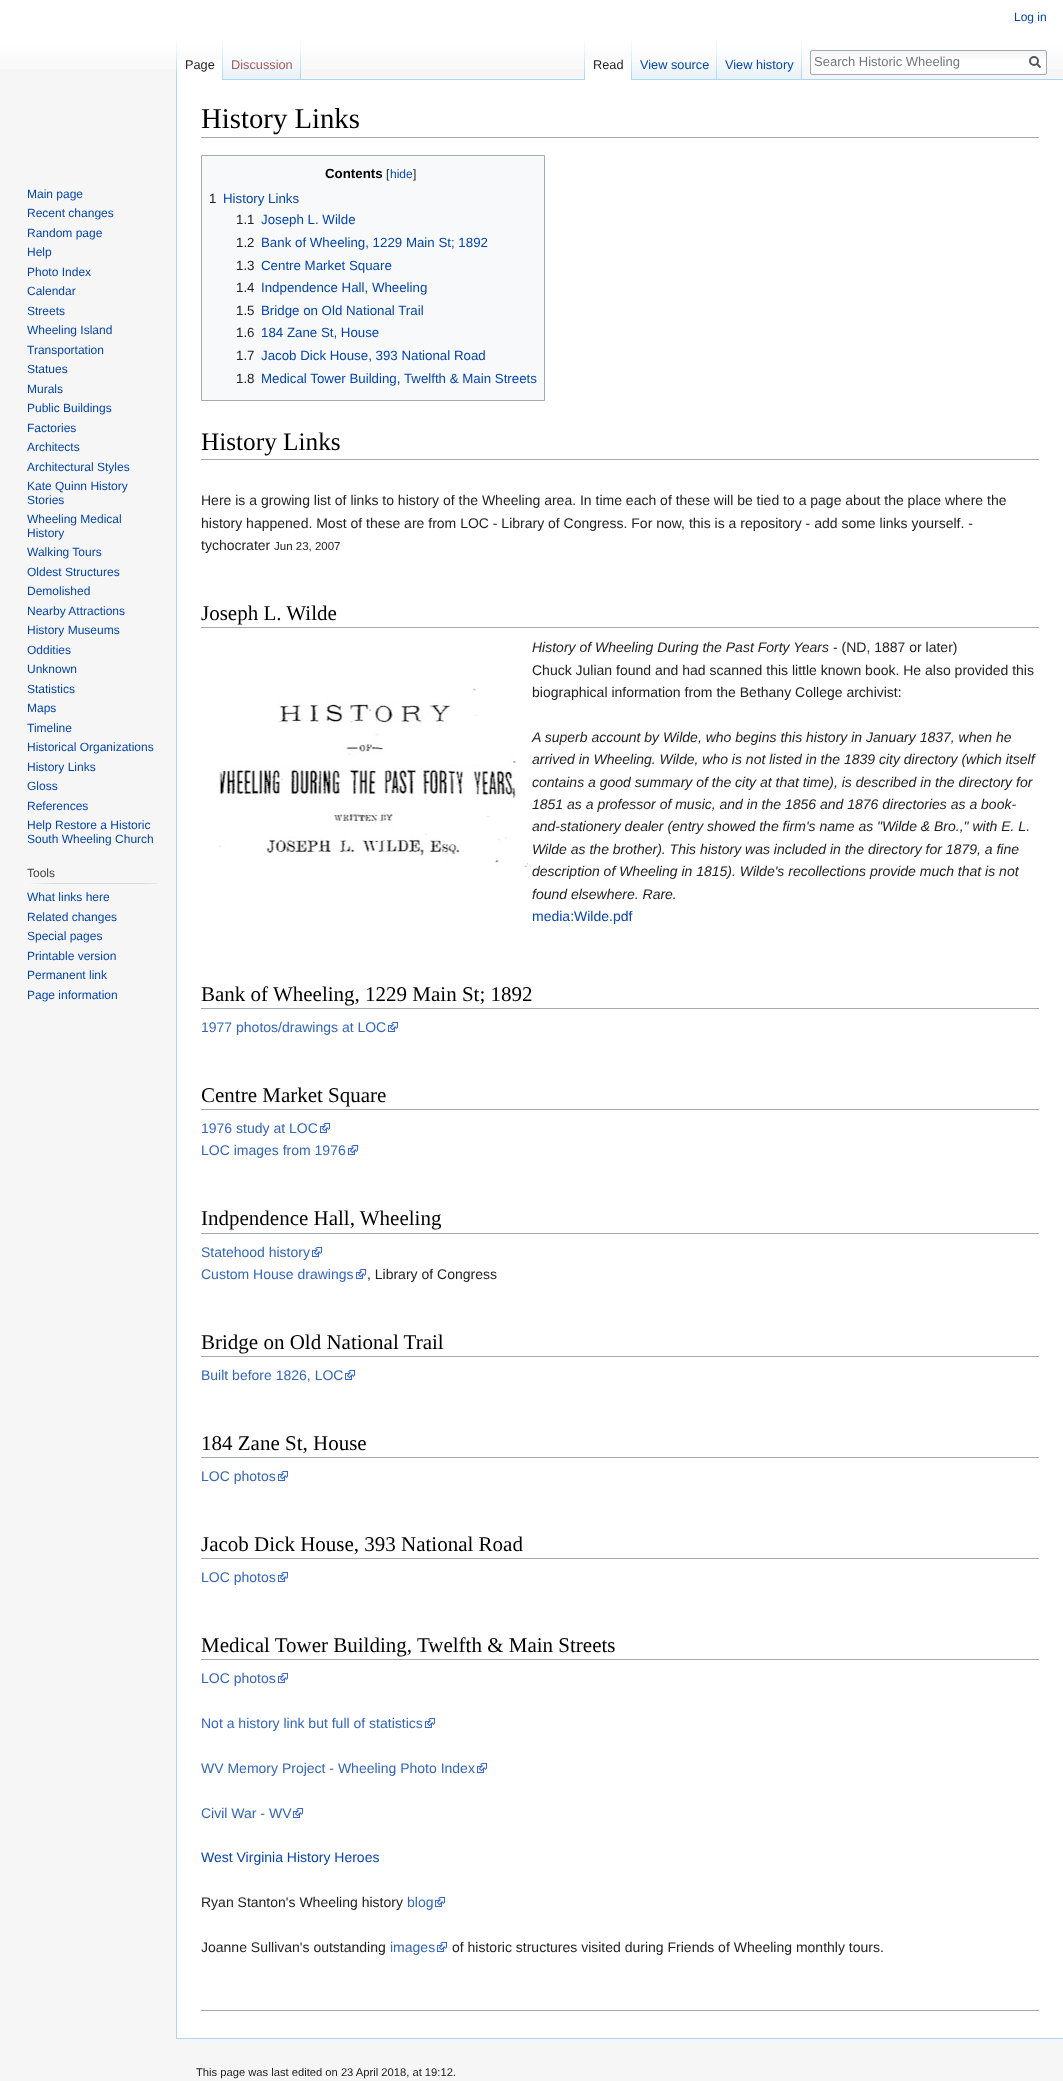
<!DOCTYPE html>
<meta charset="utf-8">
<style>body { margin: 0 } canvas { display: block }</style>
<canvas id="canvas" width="1063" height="2081"></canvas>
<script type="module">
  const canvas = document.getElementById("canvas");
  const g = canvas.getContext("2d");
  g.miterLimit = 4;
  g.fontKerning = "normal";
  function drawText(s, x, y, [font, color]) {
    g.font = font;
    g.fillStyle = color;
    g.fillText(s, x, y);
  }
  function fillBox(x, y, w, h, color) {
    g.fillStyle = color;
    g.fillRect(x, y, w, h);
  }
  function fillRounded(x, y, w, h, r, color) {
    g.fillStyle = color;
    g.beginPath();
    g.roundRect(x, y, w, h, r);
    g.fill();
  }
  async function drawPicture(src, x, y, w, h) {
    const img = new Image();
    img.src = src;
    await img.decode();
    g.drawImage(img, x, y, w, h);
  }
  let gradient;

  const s1 = ["12px Liberation Sans", "#0645AD"];
  const s2 = ["12.75px Liberation Sans", "#222222"];
  const s3 = ["12.75px Liberation Sans", "#A55858"];
  const s4 = ["12.75px Liberation Sans", "#0645AD"];
  const s5 = ["13px Liberation Sans", "#72777D"];
  const s6 = ["12px Liberation Sans", "#444444"];
  const s7 = ["28.75px Liberation Serif", "#000000"];
  const s8 = ["bold 13.3px Liberation Sans", "#000000"];
  const s9 = ["12px Liberation Sans", "#222222"];
  const s10 = ["13.3px Liberation Sans", "#222222"];
  const s11 = ["13.3px Liberation Sans", "#0645AD"];
  const s12 = ["25.25px Liberation Serif", "#000000"];
  const s13 = ["14px Liberation Sans", "#222222"];
  const s14 = ["11.5px Liberation Sans", "#222222"];
  const s15 = ["21px Liberation Serif", "#000000"];
  const s16 = ["italic 14px Liberation Sans", "#222222"];
  const s17 = ["14px Liberation Sans", "#0645AD"];
  const s18 = ["14px Liberation Sans", "#3366BB"];
  const s19 = ["11.2px Liberation Sans", "#222222"];

  fillBox(0, 0, 1063, 2081, "#F6F6F6");
  gradient = g.createLinearGradient(532, 0, 532, 80);
  gradient.addColorStop(0.5, "#FFFFFF");
  gradient.addColorStop(1, "#F6F6F6");
  g.fillStyle = gradient;
  g.fillRect(0, 0, 1063, 69);
  drawText("Log in", 1014, 21, s1);
  await drawPicture("pic1.png", 176, 40, 1, 39);
  fillBox(177, 60, 45, 20, "#FFFFFF");
  await drawPicture("pic2.png", 222, 40, 1, 40);
  drawText("Page", 185, 69, s2);
  await drawPicture("pic3.png", 223, 40, 77, 39);
  await drawPicture("pic1.png", 300, 40, 1, 39);
  drawText("Discussion", 231, 69, s3);
  await drawPicture("pic1.png", 584, 40, 1, 39);
  fillBox(223, 79, 840, 1, "#A7D7F9");
  fillBox(585, 60, 46, 20, "#FFFFFF");
  await drawPicture("pic2.png", 631, 40, 1, 40);
  drawText("Read", 593, 69, s2);
  await drawPicture("pic4.png", 632, 62, 84, 17);
  await drawPicture("pic1.png", 716, 40, 1, 39);
  drawText("View source", 640, 69, s4);
  await drawPicture("pic5.png", 717, 40, 84, 39);
  await drawPicture("pic1.png", 801, 40, 1, 39);
  drawText("View history", 725, 69, s4);
  fillRounded(810, 50, 237, 25, 2, "#FFFFFF");
  await drawPicture("pic6.png", 810, 51, 237, 8);
  g.beginPath();
  g.roundRect(810.5, 50.5, 236, 24, 1.5);
  g.strokeStyle = "#A2A9B1";
  g.stroke();
  drawText("Search Historic Wheeling", 814, 66, s5);
  g.beginPath();
  g.moveTo(1040.5, 67.5);
  g.lineTo(1036.5, 63.5);
  g.strokeStyle = "#54595D";
  g.lineWidth = 2;
  g.stroke();
  g.beginPath();
  g.arc(1034, 61, 4, 0, Math.PI * 2);
  g.stroke();
  drawText("Main page", 27, 198, s1);
  drawText("Recent changes", 27, 217, s1);
  drawText("Random page", 27, 237, s1);
  drawText("Help", 27, 256, s1);
  drawText("Photo Index", 27, 276, s1);
  drawText("Calendar", 27, 295, s1);
  drawText("Streets", 27, 315, s1);
  drawText("Wheeling Island", 27, 334, s1);
  drawText("Transportation", 27, 354, s1);
  drawText("Statues", 27, 373, s1);
  drawText("Murals", 27, 393, s1);
  drawText("Public Buildings", 27, 412, s1);
  drawText("Factories", 27, 432, s1);
  drawText("Architects", 27, 451, s1);
  drawText("Architectural Styles", 27, 471, s1);
  drawText("Kate Quinn History", 27, 490, s1);
  drawText("Stories", 27, 504, s1);
  drawText("Wheeling Medical", 27, 523, s1);
  drawText("History", 27, 537, s1);
  drawText("Walking Tours", 27, 556, s1);
  drawText("Oldest Structures", 27, 576, s1);
  drawText("Demolished", 27, 595, s1);
  drawText("Nearby Attractions", 27, 615, s1);
  drawText("History Museums", 27, 634, s1);
  drawText("Oddities", 27, 654, s1);
  drawText("Unknown", 27, 673, s1);
  drawText("Statistics", 27, 693, s1);
  drawText("Maps", 27, 712, s1);
  drawText("Timeline", 27, 732, s1);
  drawText("Historical Organizations", 27, 751, s1);
  drawText("History Links", 27, 771, s1);
  drawText("Gloss", 27, 790, s1);
  drawText("References", 27, 810, s1);
  drawText("Help Restore a Historic", 27, 829, s1);
  drawText("South Wheeling Church", 27, 843, s1);
  drawText("Tools", 27, 877, s6);
  await drawPicture("pic7.png", 30, 883, 128, 1);
  drawText("What links here", 27, 901, s1);
  drawText("Related changes", 27, 921, s1);
  drawText("Special pages", 27, 940, s1);
  drawText("Printable version", 27, 960, s1);
  drawText("Permanent link", 27, 979, s1);
  drawText("Page information", 27, 999, s1);
  fillBox(177, 80, 886, 1958, "#FFFFFF");
  fillBox(176, 2038, 887, 1, "#A7D7F9");
  fillBox(176, 79, 1, 1960, "#A7D7F9");
  fillBox(201, 137, 838, 1, "#A2A9B1");
  drawText("History Links", 201, 128, s7);
  g.fillStyle = "#F8F9FA";
  g.beginPath();
  g.rect(201.5, 155.5, 343, 245);
  g.fill();
  g.strokeStyle = "#A2A9B1";
  g.lineWidth = 1;
  g.stroke();
  drawText("Contents", 325, 178, s8);
  drawText("[", 386, 178, s9);
  drawText("hide", 390, 178, s1);
  drawText("]", 413, 178, s9);
  drawText("1", 209, 203, s10);
  drawText("History Links", 223, 203, s11);
  drawText("1.1", 236, 224, s10);
  drawText("Joseph L. Wilde", 261, 224, s11);
  drawText("1.2", 236, 247, s10);
  drawText("Bank of Wheeling, 1229 Main St; 1892", 261, 247, s11);
  drawText("1.3", 236, 270, s10);
  drawText("Centre Market Square", 261, 270, s11);
  drawText("1.4", 236, 292, s10);
  drawText("Indpendence Hall, Wheeling", 261, 292, s11);
  drawText("1.5", 236, 315, s10);
  drawText("Bridge on Old National Trail", 261, 315, s11);
  drawText("1.6", 236, 337, s10);
  drawText("184 Zane St, House", 261, 337, s11);
  drawText("1.7", 236, 360, s10);
  drawText("Jacob Dick House, 393 National Road", 261, 360, s11);
  drawText("1.8", 236, 383, s10);
  drawText("Medical Tower Building, Twelfth & Main Streets", 261, 383, s11);
  fillBox(201, 459, 838, 1, "#A2A9B1");
  drawText("History Links", 201, 450, s12);
  drawText("Here is a growing list of links to history of the Wheeling area. In time each of these will be tied to a page about the place where the", 201, 505, s13);
  drawText("history happened. Most of these are from LOC - Library of Congress. For now, this is a repository - add some links yourself. -", 201, 528, s13);
  drawText("tychocrater", 201, 550, s13);
  drawText("Jun 23, 2007", 274, 550, s14);
  fillBox(201, 627, 838, 1, "#A2A9B1");
  drawText("Joseph L. Wilde", 201, 620, s15);
  await drawPicture("pic8.png", 218, 688, 310, 179);
  drawText("History of Wheeling During the Past Forty Years", 532, 652, s16);
  drawText("- (ND, 1887 or later)", 833, 652, s13);
  drawText("Chuck Julian found and had scanned this little known book. He also provided this", 532, 675, s13);
  drawText("biographical information from the Bethany College archivist:", 532, 697, s13);
  drawText("A superb account by Wilde, who begins this history in January 1837, when he", 532, 742, s16);
  drawText("arrived in Wheeling. Wilde, who is not listed in the 1839 city directory (which itself", 532, 764, s16);
  drawText("contains a good summary of the city at that time), is described in the directory for", 532, 787, s16);
  drawText("1851 as a professor of music, and in the 1856 and 1876 directories as a book-", 532, 809, s16);
  drawText("and-stationery dealer (entry showed the firm's name as \"Wilde & Bro.,\" with E. L.", 532, 831, s16);
  drawText("Wilde as the brother). This history was included in the directory for 1879, a fine", 532, 854, s16);
  drawText("description of Wheeling in 1815). Wilde's recollections provide much that is not", 532, 876, s16);
  drawText("found elsewhere. Rare.", 532, 899, s16);
  drawText("media:Wilde.pdf", 532, 921, s17);
  fillBox(201, 1008, 838, 1, "#A2A9B1");
  drawText("Bank of Wheeling, 1229 Main St; 1892", 201, 1001, s15);
  drawText("1977 photos/drawings at LOC", 201, 1032, s18);
  await drawPicture("pic9.png", 388, 1022, 10, 10);
  fillBox(201, 1109, 838, 1, "#A2A9B1");
  drawText("Centre Market Square", 201, 1102, s15);
  drawText("1976 study at LOC", 201, 1133, s18);
  await drawPicture("pic9.png", 320, 1123, 10, 10);
  drawText("LOC images from 1976", 201, 1155, s18);
  await drawPicture("pic9.png", 348, 1145, 10, 10);
  fillBox(201, 1233, 838, 1, "#A2A9B1");
  drawText("Indpendence Hall, Wheeling", 201, 1225, s15);
  drawText("Statehood history", 201, 1257, s18);
  await drawPicture("pic9.png", 312, 1247, 10, 10);
  drawText("Custom House drawings", 201, 1279, s18);
  await drawPicture("pic9.png", 356, 1269, 10, 10);
  drawText(", Library of Congress", 367, 1279, s13);
  fillBox(201, 1356, 838, 1, "#A2A9B1");
  drawText("Bridge on Old National Trail", 201, 1349, s15);
  drawText("Built before 1826, LOC", 201, 1380, s18);
  await drawPicture("pic9.png", 345, 1370, 10, 10);
  fillBox(201, 1457, 838, 1, "#A2A9B1");
  drawText("184 Zane St, House", 201, 1450, s15);
  drawText("LOC photos", 201, 1481, s18);
  await drawPicture("pic9.png", 278, 1471, 10, 10);
  fillBox(201, 1558, 838, 1, "#A2A9B1");
  drawText("Jacob Dick House, 393 National Road", 201, 1551, s15);
  drawText("LOC photos", 201, 1582, s18);
  await drawPicture("pic9.png", 278, 1572, 10, 10);
  fillBox(201, 1659, 838, 1, "#A2A9B1");
  drawText("Medical Tower Building, Twelfth & Main Streets", 201, 1652, s15);
  drawText("LOC photos", 201, 1683, s18);
  await drawPicture("pic9.png", 278, 1673, 10, 10);
  drawText("Not a history link but full of statistics", 201, 1728, s18);
  await drawPicture("pic9.png", 425, 1718, 10, 10);
  drawText("WV Memory Project - Wheeling Photo Index", 201, 1773, s18);
  await drawPicture("pic9.png", 477, 1763, 10, 10);
  drawText("Civil War - WV", 201, 1818, s18);
  await drawPicture("pic9.png", 293, 1808, 10, 10);
  drawText("West Virginia History Heroes", 201, 1862, s17);
  drawText("Ryan Stanton's Wheeling history", 201, 1907, s13);
  drawText("blog", 407, 1907, s18);
  await drawPicture("pic9.png", 435, 1897, 10, 10);
  drawText("Joanne Sullivan's outstanding", 201, 1952, s13);
  drawText("images", 390, 1952, s18);
  await drawPicture("pic9.png", 437, 1942, 10, 10);
  drawText("of historic structures visited during Friends of Wheeling monthly tours.", 452, 1952, s13);
  fillBox(201, 2010, 838, 1, "#A2A9B1");
  drawText("This page was last edited on 23 April 2018, at 19:12.", 196, 2076, s19);
</script>
